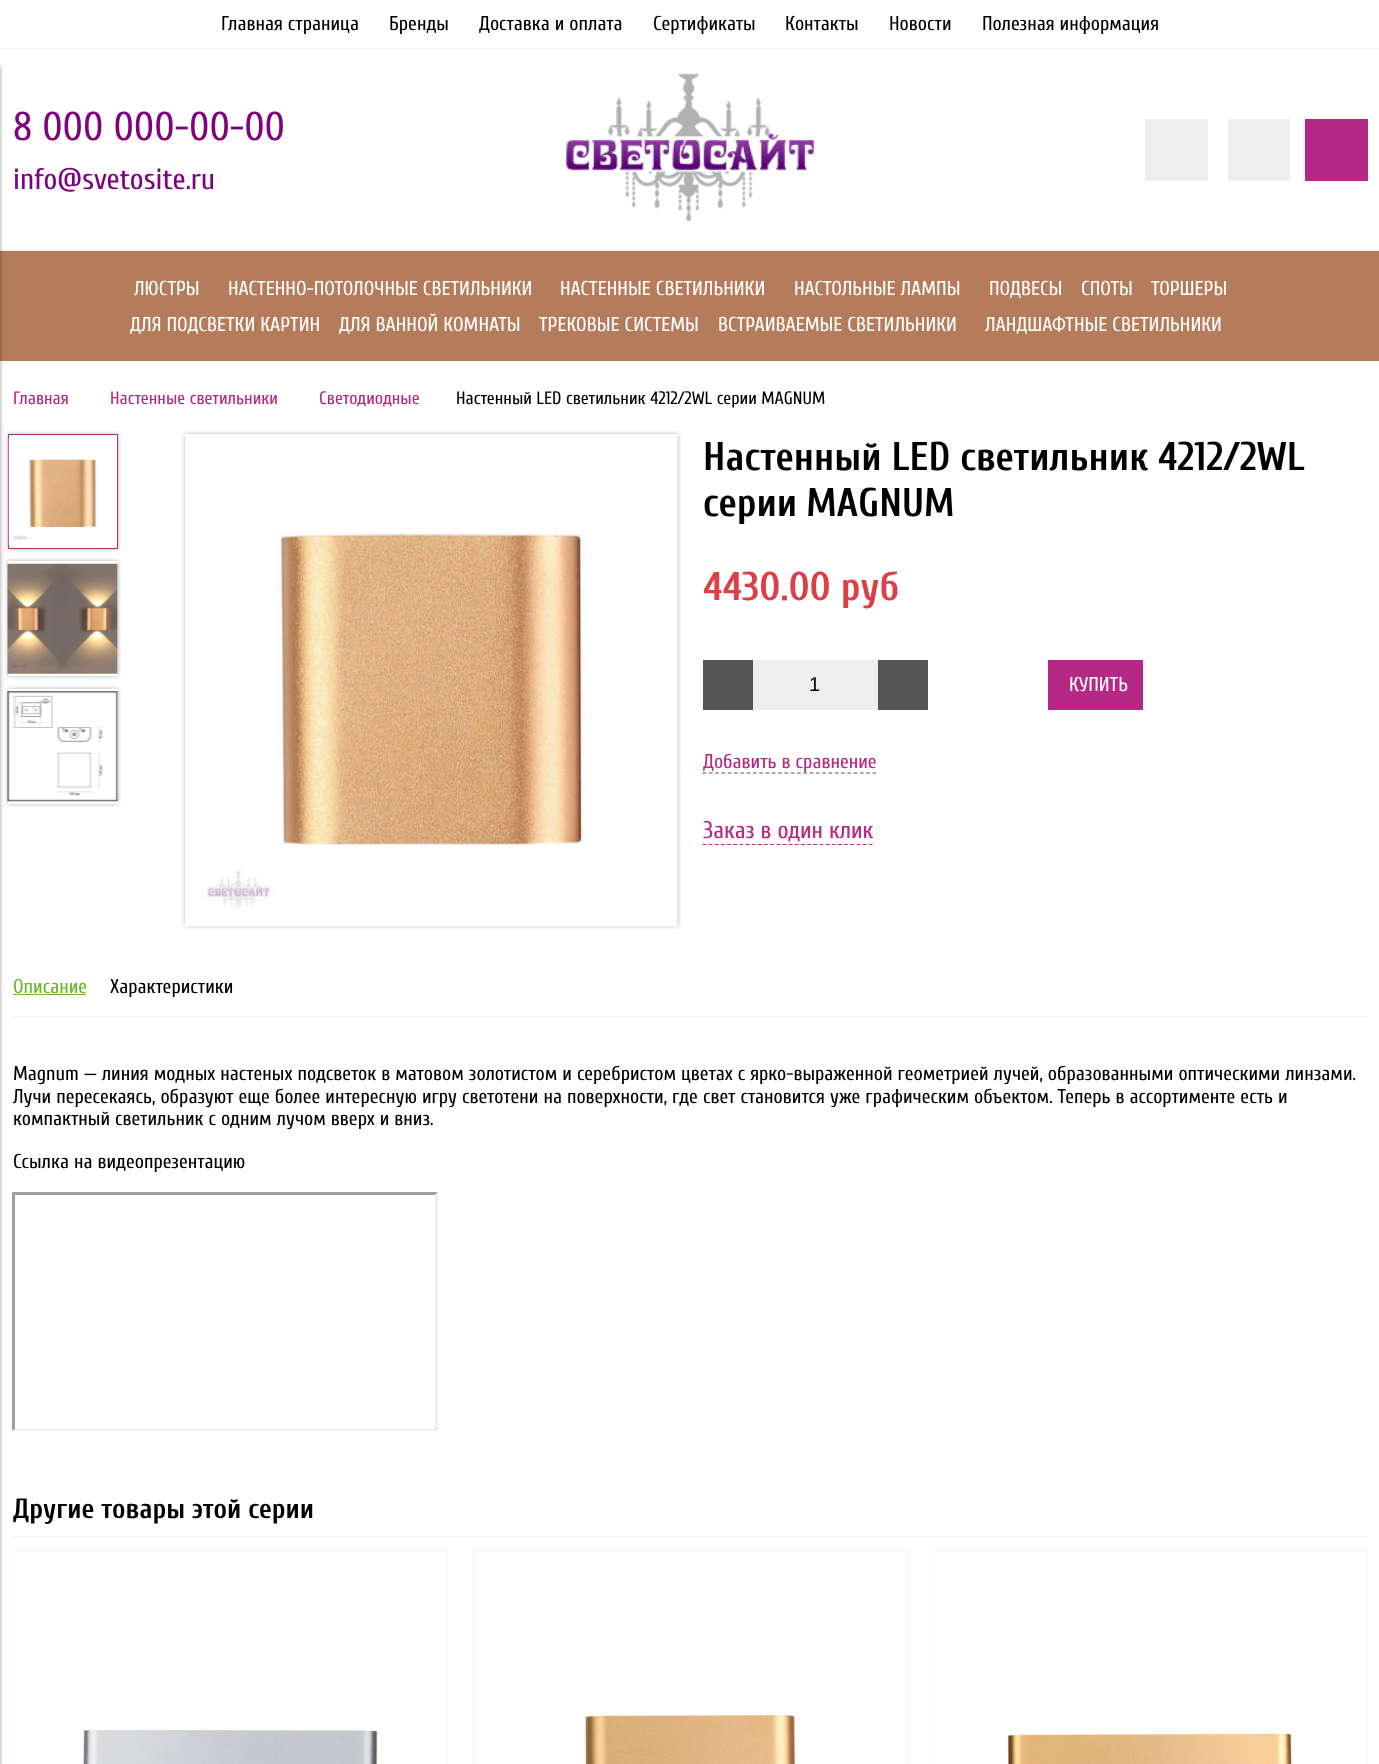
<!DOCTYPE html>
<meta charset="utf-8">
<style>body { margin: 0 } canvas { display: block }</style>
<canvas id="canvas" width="1379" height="1764"></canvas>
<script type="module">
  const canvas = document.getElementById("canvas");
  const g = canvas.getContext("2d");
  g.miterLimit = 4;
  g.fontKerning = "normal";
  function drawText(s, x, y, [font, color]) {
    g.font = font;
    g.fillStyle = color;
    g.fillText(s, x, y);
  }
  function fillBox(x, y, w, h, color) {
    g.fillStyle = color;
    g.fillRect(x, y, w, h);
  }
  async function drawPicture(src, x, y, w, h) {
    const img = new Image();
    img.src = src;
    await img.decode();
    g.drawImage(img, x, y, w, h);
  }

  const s1 = ["20px Cuprum", "#000000"];
  const s2 = ["40px Cuprum", "#800080"];
  const s3 = ["30px Cuprum", "#800080"];
  const s4 = ["20px Cuprum", "#FFFFFF"];
  const s5 = ["18px Cuprum", "#B52886"];
  const s6 = ["18px Cuprum", "#000000"];
  const s7 = ["bold 40px Cuprum", "#000000"];
  const s8 = ["bold 40px Cuprum", "#DD3F46"];
  const s9 = ["20px Liberation Sans", "#000000"];
  const s10 = ["20px Cuprum", "#B52886"];
  const s11 = ["24px Cuprum", "#B52886"];
  const s12 = ["20px Cuprum", "#6FB52A"];
  const s13 = ["bold 28px Cuprum", "#000000"];

  fillBox(0, 0, 1379, 1764, "#FFFFFF");
  fillBox(0, 250, 1379, 1, "#F2F2F2");
  fillBox(0, 251, 1379, 110, "#B57C5B");
  g.fillStyle = "rgba(0, 0, 0, 0.4)";
  g.filter = "blur(2px)";
  g.beginPath();
  g.rect(-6, 66, 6, 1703);
  g.fill();
  g.filter = "none";
  fillBox(0, 48, 1379, 1, "#F2F2F2");
  drawText("Главная страница", 221, 30, s1);
  drawText("Бренды", 389, 30, s1);
  drawText("Доставка и оплата", 479, 30, s1);
  drawText("Сертификаты", 653, 30, s1);
  drawText("Контакты", 785, 30, s1);
  drawText("Новости", 889, 30, s1);
  drawText("Полезная информация", 982, 30, s1);
  drawText("8 000 000-00-00", 13, 140, s2);
  drawText("info@svetosite.ru", 13, 189, s3);
  await drawPicture("pic1.png", 566, 73, 248, 149);
  fillBox(1145, 119, 63, 62, "#EEEEEE");
  fillBox(1228, 119, 62, 62, "#EEEEEE");
  fillBox(1305, 119, 63, 62, "#B52886");
  drawText("ЛЮСТРЫ", 134, 295, s4);
  drawText("НАСТЕННО-ПОТОЛОЧНЫЕ СВЕТИЛЬНИКИ", 228, 295, s4);
  drawText("НАСТЕННЫЕ СВЕТИЛЬНИКИ", 560, 295, s4);
  drawText("НАСТОЛЬНЫЕ ЛАМПЫ", 794, 295, s4);
  drawText("ПОДВЕСЫ", 989, 295, s4);
  drawText("СПОТЫ", 1081, 295, s4);
  drawText("ТОРШЕРЫ", 1151, 295, s4);
  drawText("ДЛЯ ПОДСВЕТКИ КАРТИН", 130, 331, s4);
  drawText("ДЛЯ ВАННОЙ КОМНАТЫ", 339, 331, s4);
  drawText("ТРЕКОВЫЕ СИСТЕМЫ", 539, 331, s4);
  drawText("ВСТРАИВАЕМЫЕ СВЕТИЛЬНИКИ", 718, 331, s4);
  drawText("ЛАНДШАФТНЫЕ СВЕТИЛЬНИКИ", 985, 331, s4);
  drawText("Главная", 13, 404, s5);
  drawText("Настенные светильники", 110, 404, s5);
  drawText("Светодиодные", 319, 404, s5);
  drawText("Настенный LED светильник 4212/2WL серии MAGNUM", 456, 404, s6);
  g.save();
  g.beginPath();
  g.moveTo(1, 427);
  g.lineTo(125, 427);
  g.lineTo(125, 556);
  g.lineTo(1, 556);
  g.closePath();
  g.moveTo(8, 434);
  g.lineTo(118, 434);
  g.lineTo(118, 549);
  g.lineTo(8, 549);
  g.closePath();
  g.clip("evenodd");
  g.fillStyle = "rgba(0, 0, 0, 0.3)";
  g.filter = "blur(2px)";
  g.beginPath();
  g.rect(8, 434, 110, 115);
  g.fill();
  g.filter = "none";
  g.restore();
  g.strokeStyle = "#B52886";
  g.strokeRect(8.5, 434.5, 109, 114);
  await drawPicture("pic2.png", 8, 437, 89, 108);
  g.save();
  g.beginPath();
  g.moveTo(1, 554);
  g.lineTo(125, 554);
  g.lineTo(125, 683);
  g.lineTo(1, 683);
  g.closePath();
  g.moveTo(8, 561);
  g.lineTo(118, 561);
  g.lineTo(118, 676);
  g.lineTo(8, 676);
  g.closePath();
  g.clip("evenodd");
  g.fillStyle = "rgba(0, 0, 0, 0.3)";
  g.filter = "blur(2px)";
  g.beginPath();
  g.rect(8, 561, 110, 115);
  g.fill();
  g.filter = "none";
  g.restore();
  await drawPicture("pic3.png", 7, 563, 111, 111);
  g.save();
  g.beginPath();
  g.moveTo(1, 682);
  g.lineTo(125, 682);
  g.lineTo(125, 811);
  g.lineTo(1, 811);
  g.closePath();
  g.moveTo(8, 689);
  g.lineTo(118, 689);
  g.lineTo(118, 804);
  g.lineTo(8, 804);
  g.closePath();
  g.clip("evenodd");
  g.fillStyle = "rgba(0, 0, 0, 0.3)";
  g.filter = "blur(2px)";
  g.beginPath();
  g.rect(8, 689, 110, 115);
  g.fill();
  g.filter = "none";
  g.restore();
  await drawPicture("pic4.png", 7, 691, 111, 111);
  g.fillStyle = "rgba(0, 0, 0, 0.3)";
  g.filter = "blur(2px)";
  g.beginPath();
  g.rect(185, 434, 493, 492);
  g.fill();
  g.filter = "none";
  await drawPicture("pic5.png", 185, 434, 493, 493);
  drawText("Настенный LED светильник 4212/2WL", 703, 470, s7);
  g.wordSpacing = "-1px";
  drawText("серии MAGNUM", 703, 516, s7);
  g.wordSpacing = "0px";
  drawText("4430.00 руб", 703, 600, s8);
  fillBox(703, 660, 50, 50, "#555555");
  fillBox(753, 660, 125, 50, "#EEEEEE");
  drawText("1", 809, 691, s9);
  fillBox(878, 660, 50, 50, "#555555");
  fillBox(1048, 660, 95, 50, "#B52886");
  drawText("КУПИТЬ", 1069, 691, s4);
  drawText("Добавить в сравнение", 703, 768, s10);
  g.beginPath();
  g.moveTo(702.5, 773);
  g.lineTo(876, 773);
  g.strokeStyle = "#555555";
  g.lineWidth = 1.2;
  g.setLineDash([3.75, 2.55]);
  g.stroke();
  drawText("Заказ в один клик", 703, 838, s11);
  g.beginPath();
  g.moveTo(702.5, 844.5);
  g.lineTo(872.5, 844.5);
  g.strokeStyle = "#B52886";
  g.setLineDash([3.75, 2.41]);
  g.stroke();
  fillBox(13, 1016, 1355, 1, "#F2F2F2");
  drawText("Описание", 13, 993, s12);
  fillBox(13, 994, 73, 1, "#6FB52A");
  drawText("Характеристики", 110, 993, s1);
  drawText("Magnum — линия модных настеных подсветок в матовом золотистом и серебристом цветах с ярко-выраженной геометрией лучей, образованными оптическими линзами.", 13, 1080, s1);
  drawText("Лучи пересекаясь, образуют еще более интересную игру светотени на поверхности, где свет становится уже графическим объектом. Теперь в ассортименте есть и", 13, 1103, s1);
  drawText("компактный светильник с одним лучом вверх и вниз.", 13, 1125, s1);
  drawText("Ссылка на видеопрезентацию", 13, 1168, s1);
  g.fillStyle = "#9F9F9F";
  g.beginPath();
  g.moveTo(12, 1192);
  g.lineTo(438, 1192);
  g.lineTo(435, 1195);
  g.lineTo(15, 1195);
  g.closePath();
  g.fill();
  g.fillStyle = "#EEEEEE";
  g.beginPath();
  g.moveTo(438, 1192);
  g.lineTo(438, 1431);
  g.lineTo(435, 1429);
  g.lineTo(435, 1195);
  g.closePath();
  g.fill();
  g.beginPath();
  g.moveTo(438, 1431);
  g.lineTo(12, 1431);
  g.lineTo(15, 1429);
  g.lineTo(435, 1429);
  g.closePath();
  g.fill();
  g.fillStyle = "#9F9F9F";
  g.beginPath();
  g.moveTo(12, 1431);
  g.lineTo(12, 1192);
  g.lineTo(15, 1195);
  g.lineTo(15, 1429);
  g.closePath();
  g.fill();
  fillBox(13, 1536, 1355, 1, "#F2F2F2");
  drawText("Другие товары этой серии", 13, 1518, s13);
  g.strokeStyle = "#F2F2F2";
  g.lineWidth = 1;
  g.setLineDash([]);
  g.strokeRect(13.5, 1550.5, 434, 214);
  await drawPicture("pic6.png", 83, 1729, 300, 35);
  g.strokeRect(473.5, 1550.5, 434, 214);
  await drawPicture("pic7.png", 582, 1712, 215, 52);
  g.strokeRect(933.5, 1550.5, 434, 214);
  await drawPicture("pic8.png", 1006, 1730, 289, 34);
</script>
